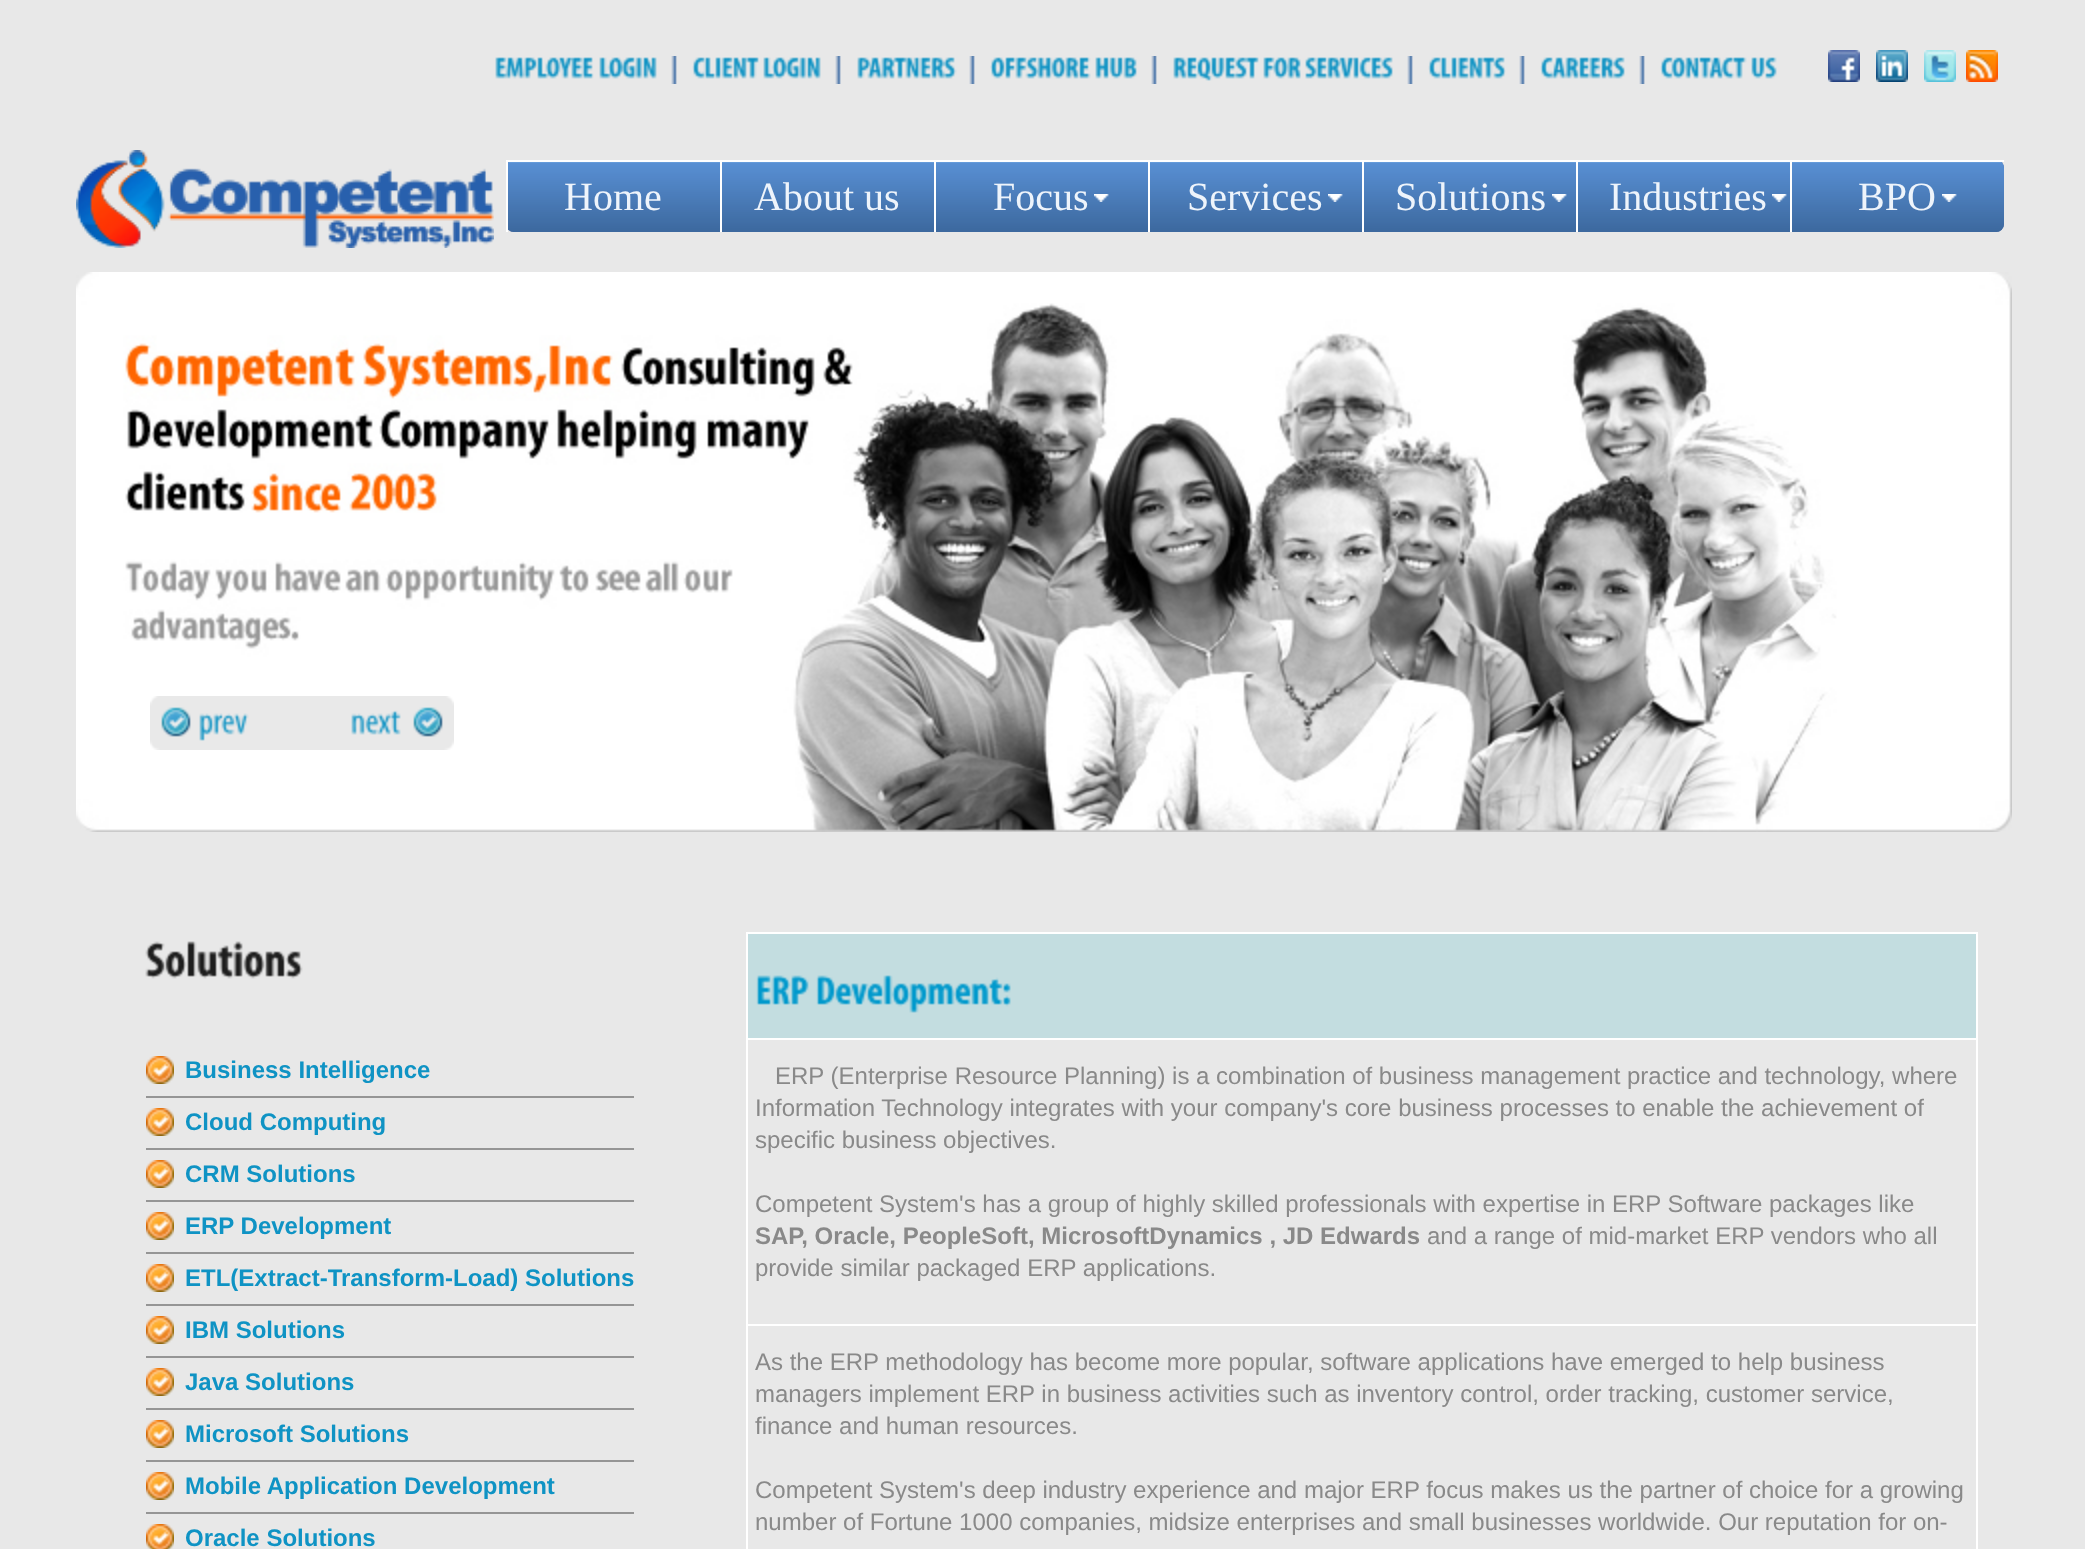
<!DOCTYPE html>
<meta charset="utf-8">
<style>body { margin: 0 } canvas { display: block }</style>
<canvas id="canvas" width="2085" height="1549"></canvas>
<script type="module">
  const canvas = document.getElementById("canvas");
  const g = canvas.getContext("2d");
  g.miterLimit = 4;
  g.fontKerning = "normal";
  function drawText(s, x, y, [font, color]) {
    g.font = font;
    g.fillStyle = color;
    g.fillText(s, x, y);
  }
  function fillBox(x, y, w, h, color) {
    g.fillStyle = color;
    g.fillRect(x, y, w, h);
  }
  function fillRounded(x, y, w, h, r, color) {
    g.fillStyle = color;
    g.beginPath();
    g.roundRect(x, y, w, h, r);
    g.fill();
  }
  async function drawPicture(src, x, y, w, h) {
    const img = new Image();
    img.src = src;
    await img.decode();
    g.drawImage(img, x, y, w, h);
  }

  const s1 = ["40px Liberation Serif", "#EEF4FB"];
  const s2 = ["bold 24px Liberation Sans", "#0F93C4"];
  const s3 = ["24px Liberation Sans", "#898989"];
  const s4 = ["bold 24px Liberation Sans", "#898989"];

  fillBox(0, 0, 2085, 1549, "#E8E8E8");
  await drawPicture("pic1.png", 495, 57, 99, 22);
  await drawPicture("pic2.png", 599, 57, 58, 22);
  await drawPicture("pic3.png", 671, 56, 6, 28);
  await drawPicture("pic4.png", 692, 57, 67, 22);
  await drawPicture("pic2.png", 763, 57, 58, 22);
  await drawPicture("pic3.png", 835, 56, 6, 28);
  await drawPicture("pic5.png", 857, 57, 100, 22);
  await drawPicture("pic3.png", 969, 56, 6, 28);
  await drawPicture("pic6.png", 990, 57, 101, 22);
  await drawPicture("pic7.png", 1095, 57, 42, 22);
  await drawPicture("pic3.png", 1151, 56, 6, 28);
  await drawPicture("pic8.png", 1173, 57, 86, 24);
  await drawPicture("pic9.png", 1263, 57, 38, 22);
  await drawPicture("pic10.png", 1305, 57, 88, 22);
  await drawPicture("pic3.png", 1407, 56, 6, 28);
  await drawPicture("pic11.png", 1428, 57, 78, 22);
  await drawPicture("pic3.png", 1519, 56, 6, 28);
  await drawPicture("pic12.png", 1540, 57, 85, 22);
  await drawPicture("pic3.png", 1639, 56, 6, 28);
  await drawPicture("pic13.png", 1660, 57, 87, 22);
  await drawPicture("pic14.png", 1751, 57, 26, 22);
  await drawPicture("pic15.png", 1828, 50, 32, 32);
  await drawPicture("pic16.png", 1876, 50, 32, 32);
  await drawPicture("pic17.png", 1924, 50, 32, 32);
  await drawPicture("pic18.png", 1966, 50, 32, 32);
  await drawPicture("pic19.png", 76, 150, 418, 98);
  fillRounded(506, 160, 1498, 72, 8, "#4966A0");
  await drawPicture("pic20.png", 508, 162, 1496, 70);
  fillBox(506, 160, 1498, 2, "#FFFFFF");
  fillBox(506, 160, 2, 72, "#FFFFFF");
  drawText("Home", 564, 210, s1);
  fillBox(720, 160, 2, 72, "#FFFFFF");
  drawText("About us", 754, 210, s1);
  fillBox(934, 160, 2, 72, "#FFFFFF");
  await drawPicture("pic21.png", 1094, 194, 15, 8);
  drawText("Focus", 993, 210, s1);
  fillBox(1148, 160, 2, 72, "#FFFFFF");
  await drawPicture("pic21.png", 1328, 194, 15, 8);
  drawText("Services", 1187, 210, s1);
  fillBox(1362, 160, 2, 72, "#FFFFFF");
  await drawPicture("pic21.png", 1552, 194, 15, 8);
  drawText("Solutions", 1395, 210, s1);
  fillBox(1576, 160, 2, 72, "#FFFFFF");
  await drawPicture("pic21.png", 1772, 194, 15, 8);
  drawText("Industries", 1609, 210, s1);
  fillBox(1790, 160, 2, 72, "#FFFFFF");
  await drawPicture("pic21.png", 1942, 194, 15, 8);
  drawText("BPO", 1858, 210, s1);
  await drawPicture("pic22.png", 76, 272, 1936, 560);
  await drawPicture("pic23.png", 150, 696, 152, 54);
  await drawPicture("pic24.png", 199, 713, 50, 28);
  await drawPicture("pic25.png", 302, 696, 152, 54);
  await drawPicture("pic26.png", 351, 710, 50, 25);
  await drawPicture("pic27.png", 145, 941, 158, 38);
  fillBox(146, 1096, 488, 2, "#959595");
  await drawPicture("pic28.png", 146, 1056, 28, 28);
  drawText("Business Intelligence", 185, 1078, s2);
  fillBox(146, 1148, 488, 2, "#959595");
  await drawPicture("pic28.png", 146, 1108, 28, 28);
  drawText("Cloud Computing", 185, 1130, s2);
  fillBox(146, 1200, 488, 2, "#959595");
  await drawPicture("pic28.png", 146, 1160, 28, 28);
  drawText("CRM Solutions", 185, 1182, s2);
  fillBox(146, 1252, 488, 2, "#959595");
  await drawPicture("pic28.png", 146, 1212, 28, 28);
  drawText("ERP Development", 185, 1234, s2);
  fillBox(146, 1304, 488, 2, "#959595");
  await drawPicture("pic28.png", 146, 1264, 28, 28);
  drawText("ETL(Extract-Transform-Load) Solutions", 185, 1286, s2);
  fillBox(146, 1356, 488, 2, "#959595");
  await drawPicture("pic28.png", 146, 1316, 28, 28);
  drawText("IBM Solutions", 185, 1338, s2);
  fillBox(146, 1408, 488, 2, "#959595");
  await drawPicture("pic28.png", 146, 1368, 28, 28);
  drawText("Java Solutions", 185, 1390, s2);
  fillBox(146, 1460, 488, 2, "#959595");
  await drawPicture("pic28.png", 146, 1420, 28, 28);
  drawText("Microsoft Solutions", 185, 1442, s2);
  fillBox(146, 1512, 488, 2, "#959595");
  await drawPicture("pic28.png", 146, 1472, 28, 28);
  drawText("Mobile Application Development", 185, 1494, s2);
  await drawPicture("pic29.png", 146, 1524, 28, 25);
  drawText("Oracle Solutions", 185, 1546, s2);
  fillBox(748, 934, 1228, 104, "#C3DDE0");
  fillBox(746, 932, 1232, 2, "#FFFFFF");
  fillBox(746, 1038, 1232, 2, "#FFFFFF");
  fillBox(746, 1324, 1232, 2, "#FFFFFF");
  fillBox(1976, 1324, 2, 225, "#FFFFFF");
  fillBox(1976, 1038, 2, 288, "#FFFFFF");
  fillBox(1976, 932, 2, 108, "#FFFFFF");
  fillBox(746, 1324, 2, 225, "#FFFFFF");
  fillBox(746, 1038, 2, 288, "#FFFFFF");
  fillBox(746, 932, 2, 108, "#FFFFFF");
  await drawPicture("pic30.png", 756, 975, 53, 30);
  await drawPicture("pic31.png", 816, 975, 195, 38);
  drawText("ERP (Enterprise Resource Planning) is a combination of business management practice and technology, where", 775, 1084, s3);
  drawText("Information Technology integrates with your company's core business processes to enable the achievement of", 755, 1116, s3);
  drawText("specific business objectives.", 755, 1148, s3);
  drawText("Competent System's has a group of highly skilled professionals with expertise in ERP Software packages like", 755, 1212, s3);
  drawText("SAP, Oracle, PeopleSoft, MicrosoftDynamics , JD Edwards", 755, 1244, s4);
  drawText("and a range of mid-market ERP vendors who all", 1427, 1244, s3);
  drawText("provide similar packaged ERP applications.", 755, 1276, s3);
  drawText("As the ERP methodology has become more popular, software applications have emerged to help business", 755, 1370, s3);
  drawText("managers implement ERP in business activities such as inventory control, order tracking, customer service,", 755, 1402, s3);
  drawText("finance and human resources.", 755, 1434, s3);
  drawText("Competent System's deep industry experience and major ERP focus makes us the partner of choice for a growing", 755, 1498, s3);
  drawText("number of Fortune 1000 companies, midsize enterprises and small businesses worldwide. Our reputation for on-", 755, 1530, s3);
</script>
